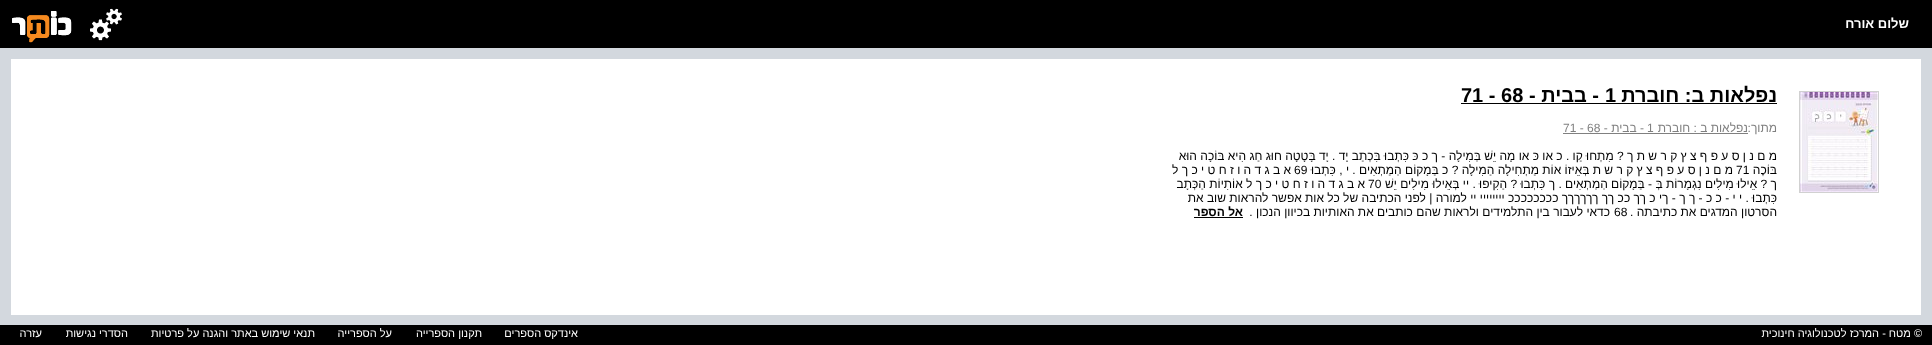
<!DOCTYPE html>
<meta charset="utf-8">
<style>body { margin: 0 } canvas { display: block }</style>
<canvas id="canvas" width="1932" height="345"></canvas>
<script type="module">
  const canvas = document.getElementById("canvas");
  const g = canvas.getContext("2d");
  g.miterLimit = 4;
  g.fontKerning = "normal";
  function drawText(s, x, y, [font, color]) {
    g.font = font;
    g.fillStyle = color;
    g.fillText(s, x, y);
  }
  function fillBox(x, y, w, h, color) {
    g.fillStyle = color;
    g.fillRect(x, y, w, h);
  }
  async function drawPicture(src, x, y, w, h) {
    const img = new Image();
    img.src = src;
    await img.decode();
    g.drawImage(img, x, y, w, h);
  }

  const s1 = ["bold 13px Liberation Sans", "#FFFFFF"];
  const s2 = ["bold 20px Liberation Sans", "#000000"];
  const s3 = ["12px Liberation Sans", "#808080"];
  const s4 = ["12px Liberation Sans", "#000000"];
  const s5 = ["bold 12px Liberation Sans", "#000000"];
  const s6 = ["11px Liberation Sans", "#FFFFFF"];

  fillBox(0, 0, 1932, 345, "#D3D8DE");
  fillBox(0, 0, 1932, 48, "#000000");
  g.direction = "rtl";
  drawText("שלום אורח", 1909, 28, s1);
  await drawPicture("pic1.png", 90, 8, 32, 33);
  await drawPicture("pic2.png", 12, 11, 60, 32);
  fillBox(11, 59, 1910, 256, "#FFFFFF");
  g.strokeStyle = "#D1D1D1";
  g.strokeRect(1799.5, 91.5, 79, 101);
  await drawPicture("pic3.png", 1800, 92, 78, 100);
  drawText("נפלאות ב: חוברת", 1777, 102, s2);
  g.direction = "ltr";
  drawText("1", 1605, 102, s2);
  g.direction = "rtl";
  drawText("- בבית -", 1599, 102, s2);
  g.direction = "ltr";
  drawText("71 - 68", 1461, 102, s2);
  fillBox(1461, 103, 316, 1, "#000000");
  g.direction = "rtl";
  drawText("מתוך:", 1777, 132, s3);
  drawText("נפלאות ב : חוברת", 1748, 132, s3);
  g.direction = "ltr";
  drawText("1", 1647, 132, s3);
  g.direction = "rtl";
  drawText("- בבית -", 1644, 132, s3);
  g.direction = "ltr";
  drawText("71 - 68", 1563, 132, s3);
  fillBox(1563, 133, 185, 1, "#808080");
  g.direction = "rtl";
  drawText("מ ם נ ן ס ע פ ף צ ץ ק ר ש ת ך ? מִתְחוּ קַו . כ או כּ או מָה יֵשׁ בַּמִילָה - ך כ כּ כִּתְבוּ בִּכְתַב יָד . יָד בָּטָטָה חוּג חַג הִיא בּוֹכָה הוּא", 1777, 160, s4);
  drawText("בּוֹכֶה", 1777, 174, s4);
  g.direction = "ltr";
  drawText("71", 1736, 174, s4);
  g.direction = "rtl";
  drawText("מ ם נ ן ס ע פ ף צ ץ ק ר ש ת בְּאֵיזוֹ אוֹת מַתְחִילָה הַמִילָה ? כ בַּמָקוֹם הַמַתְאִים . י , כִּתְבוּ", 1733, 174, s4);
  g.direction = "ltr";
  drawText("69", 1294, 174, s4);
  g.direction = "rtl";
  drawText("א ב ג ד ה ו ז ח ט י כ ך ל", 1291, 174, s4);
  drawText("ך ? אֵילוּ מִילִים נִגְמָרוֹת בְּ - בַּמָקוֹם הַמַתְאִים . ך כִּתְבוּ ? הַקִיפוּ . יי בְּאֵילוּ מִילִים יֵשׁ", 1777, 188, s4);
  g.direction = "ltr";
  drawText("70", 1368, 188, s4);
  g.direction = "rtl";
  drawText("א ב ג ד ה ו ז ח ט י כ ך ל אוֹתִיוֹת הַכְּתָב", 1365, 188, s4);
  drawText("כִּתְבוּ . י י - כ כ - ך ך - ךי כ ךך ככ ךך ךךךךךך ככככככככ יייייייי יי למורה | לפני הכתיבה של כל אות אפשר להראות שוב את", 1777, 202, s4);
  drawText("הסרטון המדגים את כתיבתה .", 1777, 216, s4);
  g.direction = "ltr";
  drawText("68", 1614, 216, s4);
  g.direction = "rtl";
  drawText("כדאי לעבור בין התלמידים ולראות שהם כותבים את האותיות בכיוון הנכון .", 1610, 216, s4);
  drawText("אל הספר", 1243, 216, s5);
  fillBox(1194, 217, 49, 1, "#000000");
  fillBox(0, 325, 1932, 20, "#000000");
  drawText("© מטח - המרכז לטכנולוגיה חינוכית", 1922, 337, s6);
  drawText("אינדקס הספרים", 578, 337, s6);
  drawText("תקנון הספרייה", 482, 337, s6);
  drawText("על הספרייה", 392, 337, s6);
  drawText("תנאי שימוש באתר והגנה על פרטיות", 315, 337, s6);
  drawText("הסדרי נגישות", 128, 337, s6);
  drawText("עזרה", 42, 337, s6);
</script>
